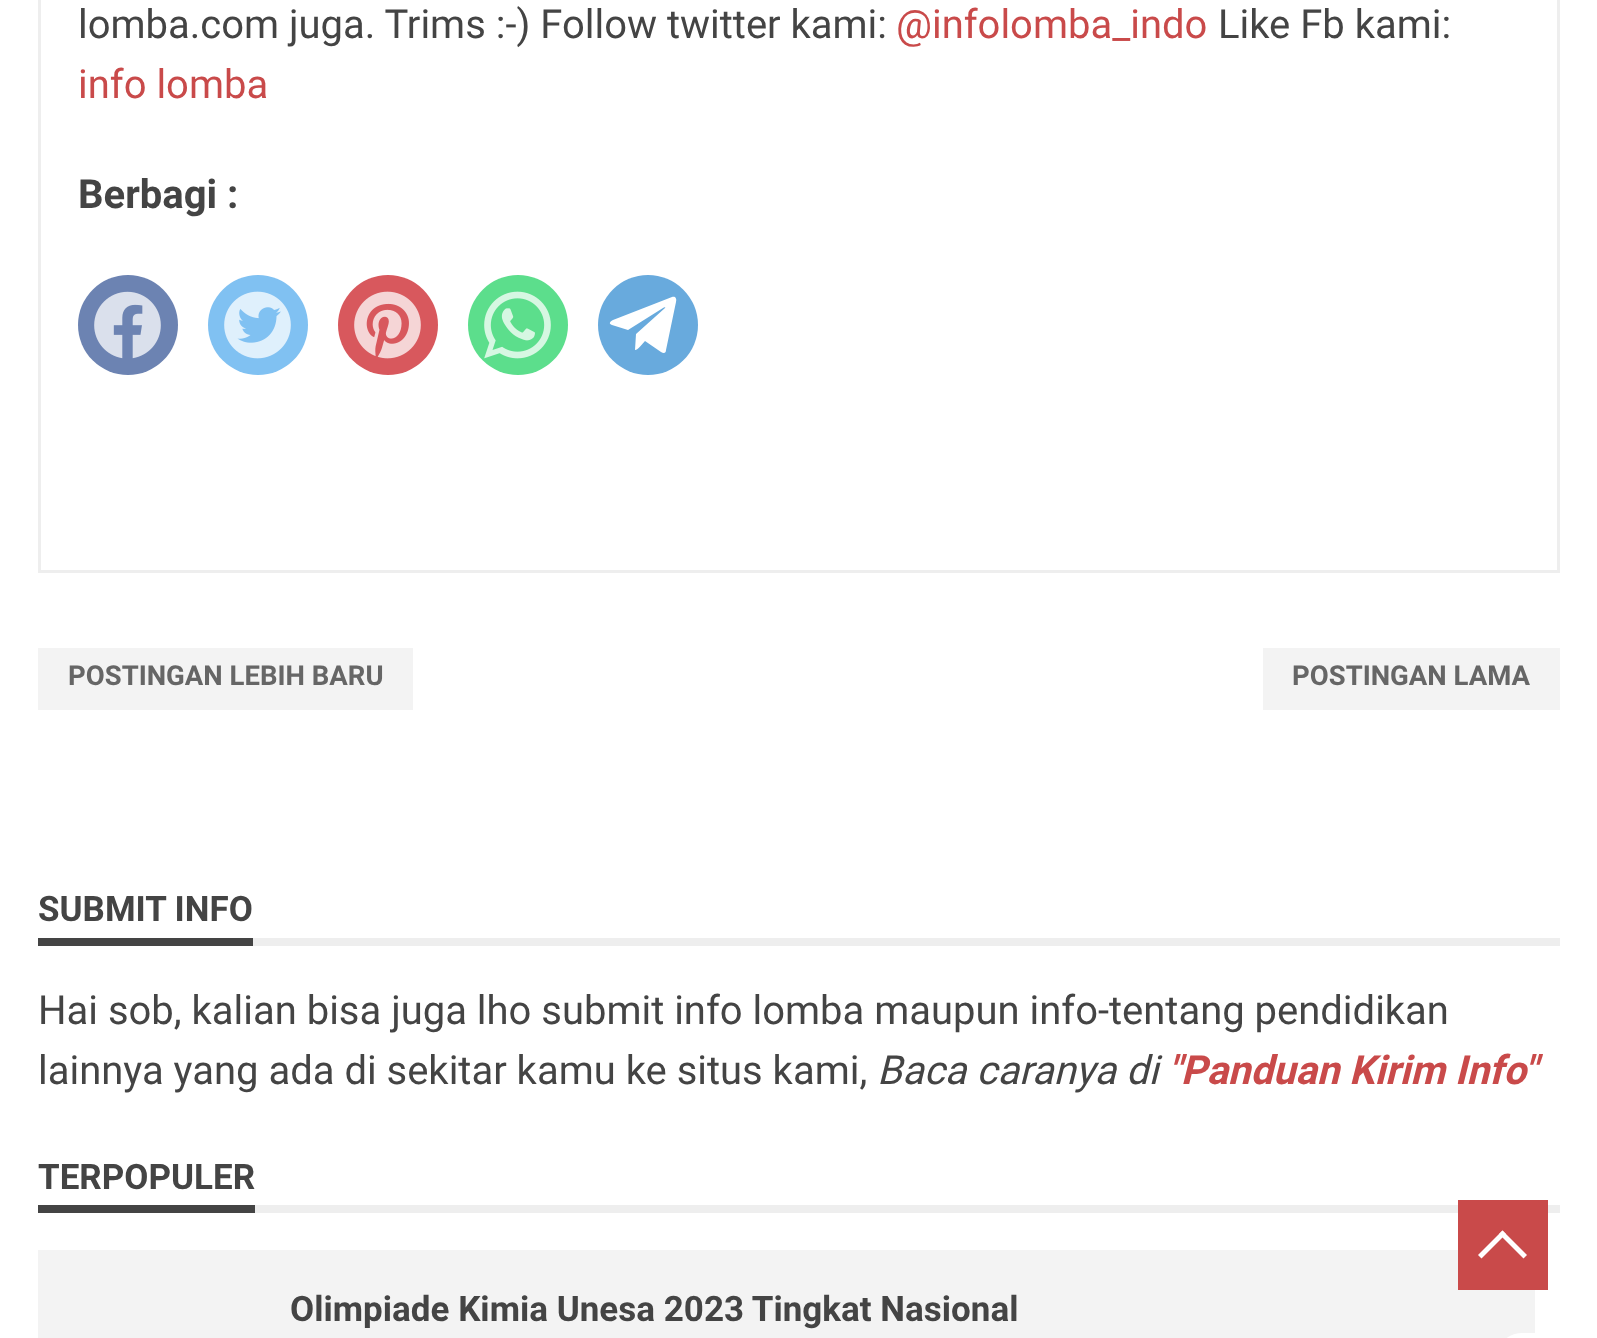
<!DOCTYPE html>
<meta charset="utf-8">
<style>body { margin: 0 } canvas { display: block }</style>
<canvas id="canvas" width="1597" height="1338"></canvas>
<script type="module">
  const canvas = document.getElementById("canvas");
  const g = canvas.getContext("2d");
  g.miterLimit = 4;
  g.fontKerning = "normal";
  function drawText(s, x, y, [font, color]) {
    g.font = font;
    g.fillStyle = color;
    g.fillText(s, x, y);
  }
  function fillBox(x, y, w, h, color) {
    g.fillStyle = color;
    g.fillRect(x, y, w, h);
  }
  async function drawPicture(src, x, y, w, h) {
    const img = new Image();
    img.src = src;
    await img.decode();
    g.drawImage(img, x, y, w, h);
  }

  const s1 = ["40px Roboto", "#444444"];
  const s2 = ["40px Roboto", "#C94A4A"];
  const s3 = ["bold 40px Roboto", "#444444"];
  const s4 = ["bold 27.5px Roboto", "#666666"];
  const s5 = ["bold 35px Roboto", "#444444"];
  const s6 = ["italic 40px Roboto", "#444444"];
  const s7 = ["italic bold 40px Roboto", "#C94A4A"];

  fillBox(0, 0, 1597, 1338, "#FFFFFF");
  g.strokeStyle = "#EEEEEE";
  g.lineWidth = 3;
  g.strokeRect(39.5, -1.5, 1519, 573);
  drawText("lomba.com juga. Trims :-) Follow twitter kami:", 78, 38, s1);
  drawText("@infolomba_indo", 896, 38, s2);
  drawText("Like Fb kami:", 1218, 38, s1);
  drawText("info lomba", 78, 98, s2);
  drawText("Berbagi :", 78, 208, s3);
  g.fillStyle = "#6C83B2";
  g.beginPath();
  g.arc(128, 325, 50, 0, Math.PI * 2);
  g.fill();
  await drawPicture("pic1.png", 94, 291, 67, 68);
  g.fillStyle = "#80C1F2";
  g.beginPath();
  g.arc(258, 325, 50, 0, Math.PI * 2);
  g.fill();
  await drawPicture("pic2.png", 224, 291, 67, 68);
  g.fillStyle = "#D8585D";
  g.beginPath();
  g.arc(388, 325, 50, 0, Math.PI * 2);
  g.fill();
  await drawPicture("pic3.png", 354, 291, 67, 68);
  g.fillStyle = "#5CDE8C";
  g.beginPath();
  g.arc(518, 325, 50, 0, Math.PI * 2);
  g.fill();
  await drawPicture("pic4.png", 484, 291, 67, 68);
  g.fillStyle = "#68AADD";
  g.beginPath();
  g.arc(648, 325, 50, 0, Math.PI * 2);
  g.fill();
  g.fillStyle = "#FFFFFF";
  g.beginPath();
  g.moveTo(672, 297);
  g.lineTo(613, 320);
  g.bezierCurveTo(609, 322, 609, 324, 612, 325);
  g.lineTo(628, 330);
  g.lineTo(663, 308);
  g.bezierCurveTo(664, 307, 666, 307, 665, 308);
  g.lineTo(636, 334);
  g.lineTo(635, 350);
  g.bezierCurveTo(638, 350, 643, 343, 645, 341);
  g.lineTo(661, 352);
  g.bezierCurveTo(664, 354, 666, 353, 666, 350);
  g.lineTo(676, 302);
  g.bezierCurveTo(677, 298, 675, 296, 672, 297);
  g.closePath();
  g.fill();
  fillBox(38, 648, 375, 62, "#F3F3F3");
  drawText("POSTINGAN LEBIH BARU", 68, 685, s4);
  fillBox(1263, 648, 297, 62, "#F3F3F3");
  drawText("POSTINGAN LAMA", 1292, 685, s4);
  fillBox(253, 938, 1307, 8, "#EEEEEE");
  fillBox(38, 938, 215, 8, "#444444");
  drawText("SUBMIT INFO", 38, 921, s5);
  drawText("Hai sob, kalian bisa juga lho submit info lomba maupun info-tentang pendidikan", 38, 1024, s1);
  drawText("lainnya yang ada di sekitar kamu ke situs kami,", 38, 1084, s1);
  drawText("Baca caranya di", 877, 1084, s6);
  drawText("\"Panduan Kirim Info\"", 1168, 1084, s7);
  fillBox(255, 1205, 1305, 8, "#EEEEEE");
  fillBox(38, 1205, 217, 8, "#444444");
  drawText("TERPOPULER", 38, 1189, s5);
  fillBox(38, 1250, 1497, 88, "#F3F3F3");
  drawText("Olimpiade Kimia Unesa 2023 Tingkat Nasional", 290, 1321, s5);
  g.fillStyle = "#D6D6D6";
  g.beginPath();
  g.moveTo(1544, 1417);
  g.bezierCurveTo(1536, 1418, 1528, 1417, 1520, 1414);
  g.bezierCurveTo(1484, 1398, 1488, 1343, 1527, 1334);
  g.bezierCurveTo(1486, 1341, 1481, 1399, 1518, 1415);
  g.bezierCurveTo(1526, 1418, 1536, 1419, 1544, 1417);
  g.closePath();
  g.fill();
  g.beginPath();
  g.roundRect(1499, 1337, 75, 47, 37.5);
  g.strokeStyle = "#FFFFFF";
  g.lineWidth = 8;
  g.stroke();
  fillBox(1458, 1200, 90, 90, "#C94A4A");
  g.fillStyle = "#FFFFFF";
  g.beginPath();
  g.moveTo(1478, 1255);
  g.lineTo(1502.5, 1230.5);
  g.lineTo(1506, 1234);
  g.lineTo(1481.5, 1258.5);
  g.closePath();
  g.fill();
  g.beginPath();
  g.moveTo(1499, 1234);
  g.lineTo(1502.5, 1230.5);
  g.lineTo(1527, 1255);
  g.lineTo(1523.5, 1258.5);
  g.closePath();
  g.fill();
</script>
